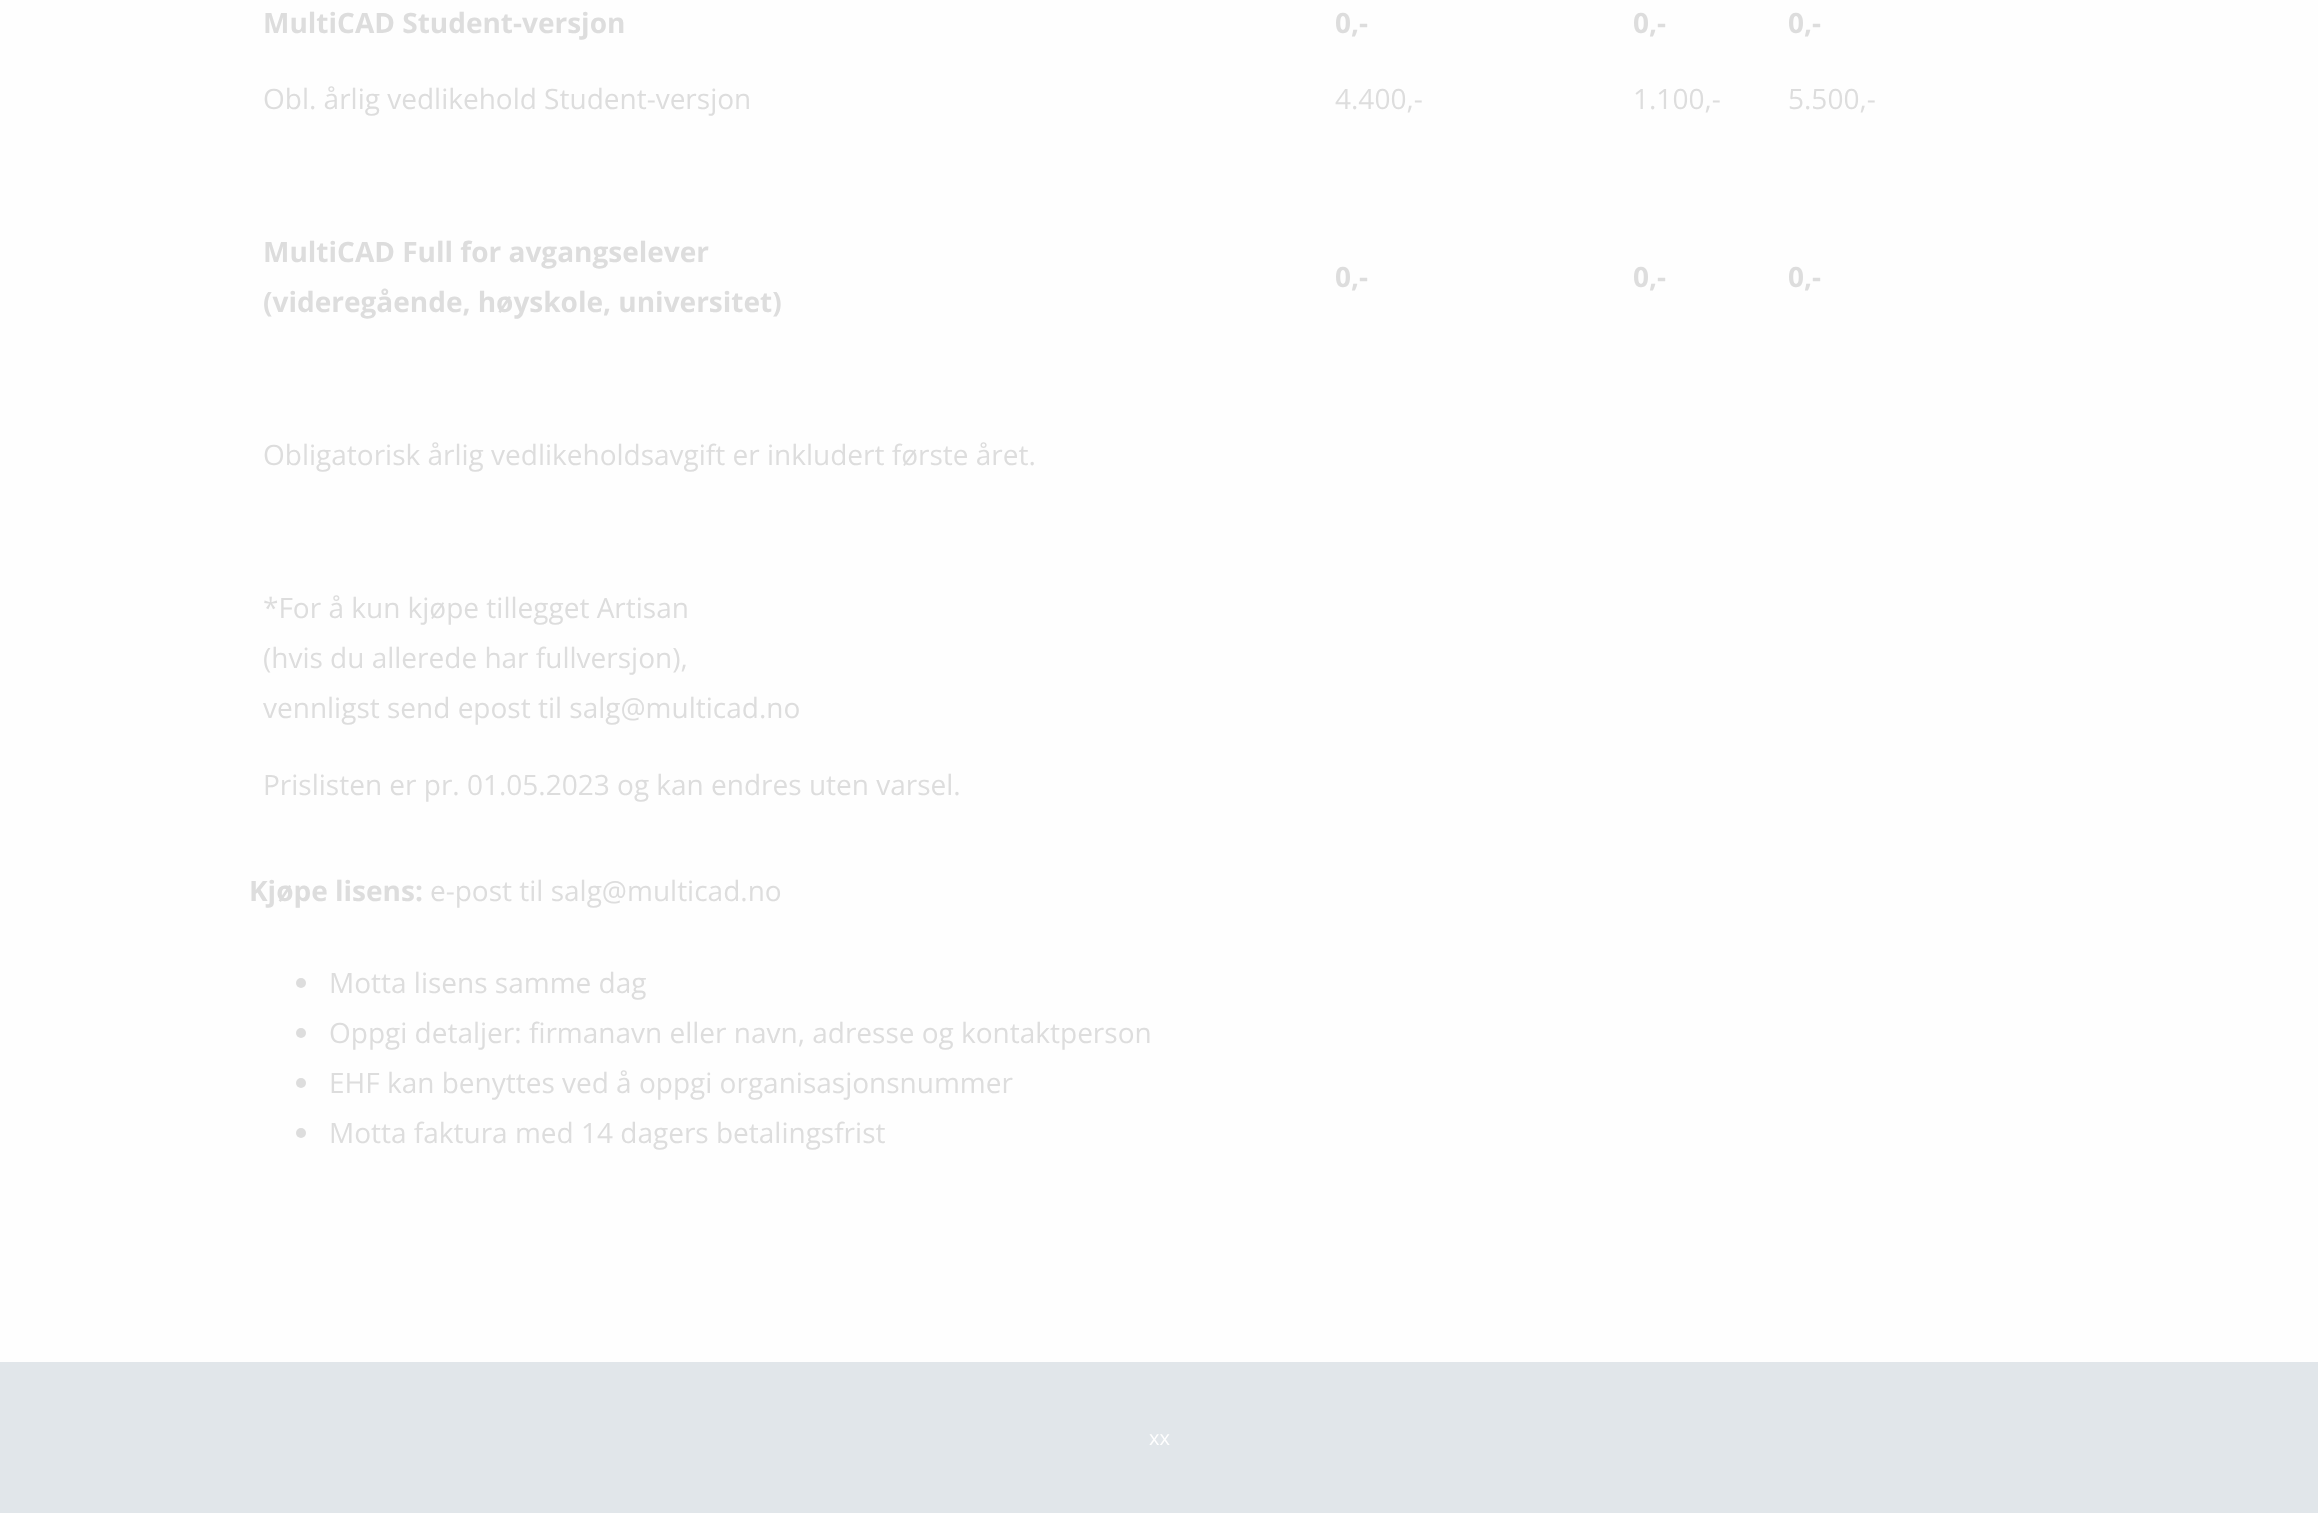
<!DOCTYPE html>
<meta charset="utf-8">
<style>body { margin: 0 } canvas { display: block }</style>
<canvas id="canvas" width="2318" height="1513"></canvas>
<script type="module">
  const canvas = document.getElementById("canvas");
  const g = canvas.getContext("2d");
  g.miterLimit = 4;
  g.fontKerning = "normal";
  function drawText(s, x, y, [font, color]) {
    g.font = font;
    g.fillStyle = color;
    g.fillText(s, x, y);
  }
  function fillBox(x, y, w, h, color) {
    g.fillStyle = color;
    g.fillRect(x, y, w, h);
  }

  const s1 = ["bold 28px Open Sans", "#DDDDDD"];
  const s2 = ["28px Open Sans", "#DDDDDD"];
  const s3 = ["20px Open Sans", "#FEFEFE"];

  fillBox(0, 0, 2318, 1513, "#FEFEFE");
  drawText("MultiCAD Student-versjon", 263, 33, s1);
  drawText("0,-", 1335, 33, s1);
  drawText("0,-", 1633, 33, s1);
  drawText("0,-", 1788, 33, s1);
  drawText("Obl. årlig vedlikehold Student-versjon", 263, 109, s2);
  drawText("4.400,-", 1335, 109, s2);
  drawText("1.100,-", 1633, 109, s2);
  drawText("5.500,-", 1788, 109, s2);
  drawText("MultiCAD Full for avgangselever", 263, 262, s1);
  drawText("(videregående, høyskole, universitet)", 263, 312, s1);
  drawText("0,-", 1335, 287, s1);
  drawText("0,-", 1633, 287, s1);
  drawText("0,-", 1788, 287, s1);
  drawText("Obligatorisk årlig vedlikeholdsavgift er inkludert første året.", 263, 465, s2);
  drawText("*For å kun kjøpe tillegget Artisan", 263, 618, s2);
  drawText("(hvis du allerede har fullversjon),", 263, 668, s2);
  drawText("vennligst send epost til salg@multicad.no", 263, 718, s2);
  drawText("Prislisten er pr. 01.05.2023 og kan endres uten varsel.", 263, 795, s2);
  drawText("Kjøpe lisens:", 249, 901, s1);
  drawText("e-post til salg@multicad.no", 430, 901, s2);
  g.beginPath();
  g.arc(301, 983, 5, 0, Math.PI * 2);
  g.fill();
  drawText("Motta lisens samme dag", 329, 993, s2);
  g.beginPath();
  g.arc(301, 1033, 5, 0, Math.PI * 2);
  g.fill();
  drawText("Oppgi detaljer: firmanavn eller navn, adresse og kontaktperson", 329, 1043, s2);
  g.beginPath();
  g.arc(301, 1083, 5, 0, Math.PI * 2);
  g.fill();
  drawText("EHF kan benyttes ved å oppgi organisasjonsnummer", 329, 1093, s2);
  g.beginPath();
  g.arc(301, 1133, 5, 0, Math.PI * 2);
  g.fill();
  drawText("Motta faktura med 14 dagers betalingsfrist", 329, 1143, s2);
  fillBox(0, 1362, 2318, 151, "#E1E6EA");
  drawText("xx", 1149, 1445, s3);
</script>
